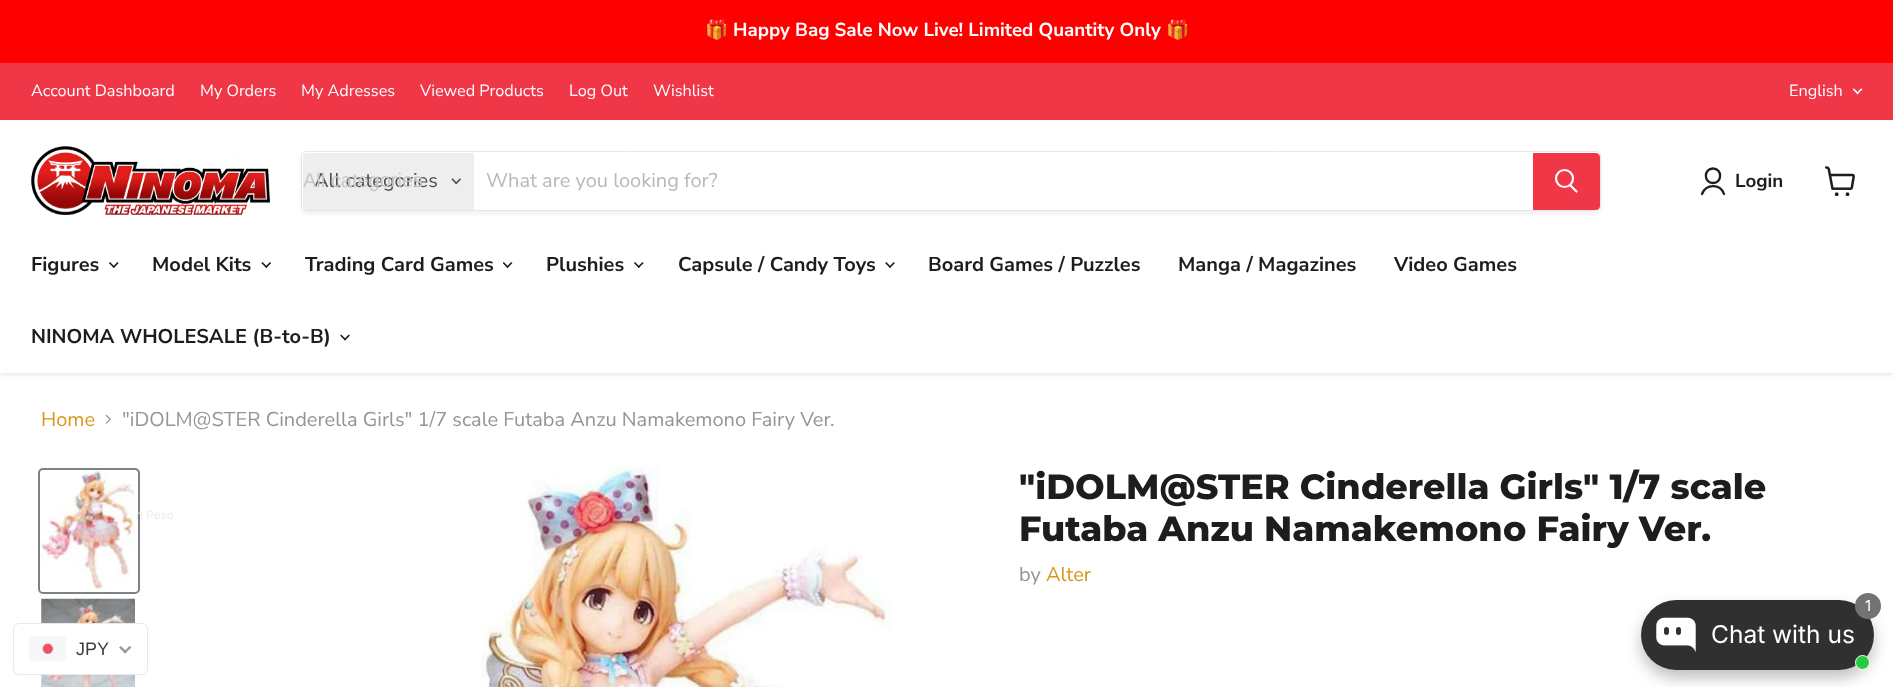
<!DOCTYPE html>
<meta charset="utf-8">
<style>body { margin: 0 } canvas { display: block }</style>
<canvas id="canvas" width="1893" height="687"></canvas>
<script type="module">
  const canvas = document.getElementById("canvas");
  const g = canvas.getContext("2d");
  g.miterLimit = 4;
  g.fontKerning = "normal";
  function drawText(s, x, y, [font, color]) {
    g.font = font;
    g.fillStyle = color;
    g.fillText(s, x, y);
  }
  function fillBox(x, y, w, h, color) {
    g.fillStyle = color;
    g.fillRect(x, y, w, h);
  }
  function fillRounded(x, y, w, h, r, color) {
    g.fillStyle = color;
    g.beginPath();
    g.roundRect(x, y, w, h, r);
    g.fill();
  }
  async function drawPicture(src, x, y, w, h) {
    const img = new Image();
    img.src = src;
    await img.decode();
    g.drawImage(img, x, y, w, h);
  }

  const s1 = ["bold 18.75px Noto Color Emoji", "#FFFFFF"];
  const s2 = ["bold 18.75px Nunito Sans", "#FFFFFF"];
  const s3 = ["16.25px Nunito Sans", "#FFFFFF"];
  const s4 = ["20px Nunito Sans", "#4D4D4D"];
  const s5 = ["20px Liberation Sans", "#C7C7C7"];
  const s6 = ["20px Nunito Sans", "#B8B8B8"];
  const s7 = ["bold 18.75px Nunito Sans", "#1D1D1D"];
  const s8 = ["bold 20px Nunito Sans", "#1D1D1D"];
  const s9 = ["20px Nunito Sans", "#D6981A"];
  const s10 = ["20px Nunito Sans", "#949494"];
  const s11 = ["800 35px Montserrat", "#1D1D1D"];
  const s12 = ["12px Liberation Sans", "#F4EAE6"];
  const s13 = ["18px Liberation Sans", "#403F3F"];
  const s14 = ["15px Inter", "#FFFFFF"];
  const s15 = ["24.5px Inter", "#FFFFFF"];

  fillBox(0, 0, 1893, 687, "#FFFFFF");
  fillBox(0, 0, 1893, 63, "#FF0000");
  drawText("🎁", 705, 36, s1);
  drawText("Happy Bag Sale Now Live! Limited Quantity Only", 733, 36, s2);
  drawText("🎁", 1166, 36, s1);
  g.fillStyle = "rgba(128, 128, 128, 0.25)";
  g.filter = "blur(2.5px)";
  g.beginPath();
  g.rect(0, 123, 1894, 251);
  g.fill();
  g.filter = "none";
  fillBox(0, 63, 1893, 57, "#F03748");
  drawText("Account Dashboard", 31, 96, s3);
  drawText("My Orders", 200, 96, s3);
  drawText("My Adresses", 301, 96, s3);
  drawText("Viewed Products", 420, 96, s3);
  drawText("Log Out", 569, 96, s3);
  drawText("Wishlist", 653, 96, s3);
  drawText("English", 1789, 96, s3);
  await drawPicture("pic1.png", 1853, 88, 10, 7);
  fillBox(0, 120, 1893, 253, "#FFFFFF");
  await drawPicture("pic2.png", 31, 146, 239, 69);
  g.save();
  g.beginPath();
  g.moveTo(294, 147);
  g.lineTo(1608, 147);
  g.lineTo(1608, 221);
  g.lineTo(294, 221);
  g.closePath();
  g.moveTo(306, 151);
  g.lineTo(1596, 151);
  g.bezierCurveTo(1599, 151, 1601, 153, 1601, 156);
  g.lineTo(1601, 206);
  g.bezierCurveTo(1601, 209, 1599, 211, 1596, 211);
  g.lineTo(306, 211);
  g.bezierCurveTo(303, 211, 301, 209, 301, 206);
  g.lineTo(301, 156);
  g.bezierCurveTo(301, 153, 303, 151, 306, 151);
  g.closePath();
  g.clip("evenodd");
  g.fillStyle = "rgba(128, 128, 128, 0.11)";
  g.filter = "blur(2px)";
  g.beginPath();
  g.roundRect(301, 154, 1300, 60, 5);
  g.fill();
  g.filter = "none";
  g.restore();
  g.beginPath();
  g.roundRect(301.5, 151.5, 1299, 59, 4.5);
  g.strokeStyle = "rgba(128, 128, 128, 0.2)";
  g.stroke();
  g.fillStyle = "#EEEEEE";
  g.beginPath();
  g.roundRect(303, 153, 171, 57, [4, 0, 0, 4]);
  g.fill();
  drawText("All categories", 314, 187, s4);
  drawText("All categories", 303, 187, s5);
  await drawPicture("pic3.png", 451, 178, 10, 7);
  drawText("What are you looking for?", 486, 187, s6);
  g.fillStyle = "#F03748";
  g.beginPath();
  g.roundRect(1533.5, 153.5, 66, 56, [0, 3.5, 3.5, 0]);
  g.fill();
  g.strokeStyle = "#F03748";
  g.stroke();
  g.beginPath();
  g.moveTo(1576.5, 191.5);
  g.lineTo(1570.5, 185.5);
  g.strokeStyle = "#FFFFFF";
  g.lineWidth = 2.2;
  g.lineCap = "round";
  g.stroke();
  g.beginPath();
  g.arc(1564.5, 178.5, 8.5, 0, Math.PI * 2);
  g.stroke();
  g.beginPath();
  g.moveTo(1713, 183);
  g.bezierCurveTo(1722.5, 183, 1722.5, 168.5, 1713, 168.5);
  g.bezierCurveTo(1703.5, 168.5, 1703.5, 183, 1713, 183);
  g.closePath();
  g.moveTo(1724, 194);
  g.bezierCurveTo(1720.5, 183.5, 1706, 183.5, 1702, 194);
  g.strokeStyle = "#1D1D1D";
  g.lineWidth = 2.3;
  g.lineJoin = "round";
  g.stroke();
  drawText("Login", 1735, 187, s7);
  await drawPicture("pic4.png", 1825, 166, 30, 30);
  drawText("Figures", 31, 271, s8);
  await drawPicture("pic5.png", 109, 262, 10, 6);
  drawText("Model Kits", 152, 271, s8);
  await drawPicture("pic6.png", 261, 262, 10, 6);
  drawText("Trading Card Games", 305, 271, s8);
  await drawPicture("pic7.png", 503, 262, 10, 6);
  drawText("Plushies", 546, 271, s8);
  await drawPicture("pic5.png", 634, 262, 10, 6);
  drawText("Capsule / Candy Toys", 678, 271, s8);
  await drawPicture("pic8.png", 885, 262, 10, 6);
  drawText("Board Games / Puzzles", 928, 271, s8);
  drawText("Manga / Magazines", 1178, 271, s8);
  drawText("Video Games", 1394, 271, s8);
  drawText("NINOMA WHOLESALE (B-to-B)", 31, 343, s8);
  await drawPicture("pic9.png", 340, 334, 10, 7);
  drawText("Home", 41, 426, s9);
  await drawPicture("pic10.png", 105, 414, 6, 10);
  drawText("\"iDOLM@STER Cinderella Girls\" 1/7 scale Futaba Anzu Namakemono Fairy Ver.", 122, 426, s10);
  g.beginPath();
  g.roundRect(39, 469, 100, 124, 4);
  g.strokeStyle = "#818181";
  g.lineWidth = 2;
  g.lineJoin = "miter";
  g.stroke();
  await drawPicture("pic11.png", 41, 471, 94, 118);
  await drawPicture("pic12.png", 41, 598, 94, 89);
  await drawPicture("pic13.png", 481, 466, 410, 221);
  drawText("\"iDOLM@STER Cinderella Girls\" 1/7 scale", 1019, 499, s11);
  drawText("Futaba Anzu Namakemono Fairy Ver.", 1019, 541, s11);
  drawText("by", 1019, 581, s10);
  drawText("Alter", 1046, 581, s9);
  g.fillStyle = "#FFFFFF";
  g.beginPath();
  g.roundRect(13.5, 623.5, 134, 51, 5.5);
  g.fill();
  g.strokeStyle = "#E8E8E8";
  g.lineWidth = 1;
  g.stroke();
  drawText("n Peso", 136, 519, s12);
  await drawPicture("pic14.png", 29, 636, 37, 25);
  drawText("JPY", 76, 655, s13);
  g.fillStyle = "#999999";
  g.beginPath();
  g.moveTo(129.5, 646);
  g.lineTo(131.5, 647.5);
  g.lineTo(125, 653.5);
  g.lineTo(123.5, 652);
  g.closePath();
  g.fill();
  g.beginPath();
  g.moveTo(121, 646);
  g.lineTo(127, 652);
  g.lineTo(125, 653.5);
  g.lineTo(119, 647.5);
  g.closePath();
  g.fill();
  g.fillStyle = "rgba(0, 0, 0, 0.25)";
  g.filter = "blur(7.5px)";
  g.beginPath();
  g.roundRect(1641, 608, 233, 70, 35);
  g.fill();
  g.filter = "none";
  fillRounded(1641, 600, 233, 70, 35, "#303030");
  g.fillStyle = "#737373";
  g.beginPath();
  g.arc(1868, 606, 13, 0, Math.PI * 2);
  g.fill();
  drawText("1", 1865, 611, s14);
  await drawPicture("pic15.png", 1656, 617, 40, 35);
  drawText("Chat with us", 1711, 643, s15);
  g.fillStyle = "#27CA40";
  g.beginPath();
  g.arc(1862.5, 662.5, 7, 0, Math.PI * 2);
  g.fill();
  g.strokeStyle = "#FFFFFF";
  g.stroke();
</script>
